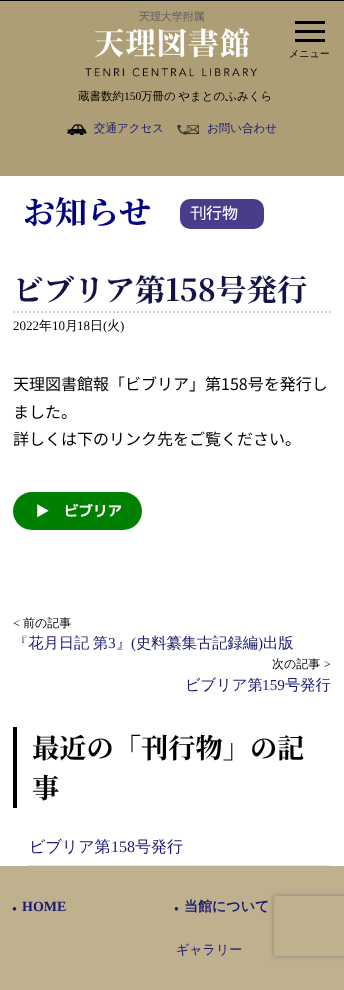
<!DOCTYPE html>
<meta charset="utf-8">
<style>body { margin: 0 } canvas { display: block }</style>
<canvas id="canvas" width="344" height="990"></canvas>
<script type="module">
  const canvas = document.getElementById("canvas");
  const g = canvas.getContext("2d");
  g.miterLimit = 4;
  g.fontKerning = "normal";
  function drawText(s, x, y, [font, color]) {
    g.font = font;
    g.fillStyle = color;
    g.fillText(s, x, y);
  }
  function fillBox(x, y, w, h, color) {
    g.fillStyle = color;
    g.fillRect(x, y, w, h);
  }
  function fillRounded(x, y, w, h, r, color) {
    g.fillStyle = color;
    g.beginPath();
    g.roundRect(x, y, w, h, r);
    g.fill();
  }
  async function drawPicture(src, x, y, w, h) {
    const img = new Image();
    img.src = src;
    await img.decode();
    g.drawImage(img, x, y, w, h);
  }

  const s1 = ["500 10px WenQuanYi Zen Hei", "#000000"];
  const s2 = ["500 11.5px WenQuanYi Zen Hei", "#000000"];
  const s3 = ["11.5px Liberation Serif", "#000000"];
  const s4 = ["500 11.5px WenQuanYi Zen Hei", "#191970"];
  const s5 = ["bold 32px Noto Serif JP", "#000080"];
  const s6 = ["16px Sawarabi Gothic", "#FFFFFF"];
  const s7 = ["bold 30.5px Noto Serif JP", "#141346"];
  const s8 = ["13px Liberation Serif", "#000000"];
  const s9 = ["500 13px WenQuanYi Zen Hei", "#000000"];
  const s10 = ["100 16px Noto Sans JP", "#000000"];
  const s11 = ["bold 14.5px 'M PLUS 1p'", "#FFFFFF"];
  const s12 = ["12px Liberation Serif", "#000000"];
  const s13 = ["500 12px WenQuanYi Zen Hei", "#000000"];
  const s14 = ["500 15.25px WenQuanYi Zen Hei", "#191970"];
  const s15 = ["15.25px Liberation Serif", "#191970"];
  const s16 = ["bold 27.25px Noto Serif JP", "#000000"];
  const s17 = ["500 16px WenQuanYi Zen Hei", "#191970"];
  const s18 = ["16px Liberation Serif", "#191970"];
  const s19 = ["bold 8px Liberation Serif", "#191970"];
  const s20 = ["bold 14px Liberation Serif", "#191970"];
  const s21 = ["bold 14px WenQuanYi Zen Hei", "#191970"];
  const s22 = ["500 13px WenQuanYi Zen Hei", "#191970"];

  fillBox(0, 0, 344, 990, "#FFFFFF");
  fillBox(0, 0, 344, 1, "#000000");
  fillBox(0, 1, 344, 175, "#AE9E75");
  fillBox(295, 21, 30, 3, "#000000");
  fillBox(295, 30, 30, 3, "#000000");
  fillBox(295, 39, 30, 3, "#000000");
  drawText("メニュー", 289, 57, s1);
  await drawPicture("pic1.png", 85, 11, 172, 66);
  drawText("蔵書数約", 78, 100, s2);
  drawText("150", 124, 100, s3);
  g.wordSpacing = "-1px";
  drawText("万冊の やまとのふみくら", 141, 100, s2);
  await drawPicture("pic2.png", 67, 124, 20, 11);
  g.wordSpacing = "0px";
  drawText("交通アクセス", 94, 132, s4);
  await drawPicture("pic3.png", 177, 125, 22, 10);
  drawText("お問い合わせ", 207, 132, s4);
  drawText("お知らせ", 23, 224, s5);
  fillRounded(180, 199, 84, 30, 10, "#483D8B");
  drawText("刊行物", 190, 219, s6);
  g.beginPath();
  g.moveTo(13, 312);
  g.lineTo(331, 312);
  g.strokeStyle = "#CCCCCC";
  g.lineWidth = 2;
  g.setLineDash([2, 2]);
  g.stroke();
  drawText("ビブリア第158号発行", 13, 301, s7);
  drawText("2022", 13, 330, s8);
  drawText("年", 39, 330, s9);
  drawText("10", 52, 330, s8);
  drawText("月", 65, 330, s9);
  drawText("18", 77, 330, s8);
  drawText("日", 90, 330, s9);
  drawText("(", 103, 330, s8);
  drawText("火", 107, 330, s9);
  drawText(")", 120, 330, s8);
  drawText("天理図書館報「ビブリア」第158号を発行し", 13, 390, s10);
  drawText("ました。", 13, 418, s10);
  drawText("詳しくは下のリンク先をご覧ください。", 13, 445, s10);
  fillRounded(13, 492, 129, 38, 19, "#008000");
  drawText("▶　ビブリア", 35, 516, s11);
  drawText("<", 13, 627, s12);
  drawText("前の記事", 23, 627, s13);
  g.wordSpacing = "-1px";
  drawText("『花月日記 第", 13, 648, s14);
  g.wordSpacing = "0px";
  drawText("3", 108, 648, s15);
  drawText("』", 116, 648, s14);
  drawText("(", 131, 648, s15);
  drawText("史料纂集古記録編", 136, 648, s14);
  drawText(")", 258, 648, s15);
  drawText("出版", 263, 648, s14);
  drawText("次の記事", 272, 668, s13);
  drawText(">", 324, 668, s12);
  drawText("ビブリア第", 185, 690, s14);
  drawText("159", 262, 690, s15);
  drawText("号発行", 285, 690, s14);
  fillBox(13, 727, 4, 81, "#000000");
  drawText("最近の「刊行物」の記", 32, 758, s16);
  drawText("事", 32, 798, s16);
  g.beginPath();
  g.moveTo(29, 865.5);
  g.lineTo(331, 865.5);
  g.lineWidth = 1;
  g.setLineDash([1, 1]);
  g.stroke();
  drawText("ビブリア第", 29, 852, s17);
  drawText("158", 111, 852, s18);
  drawText("号発行", 135, 852, s17);
  fillBox(0, 866, 344, 124, "#BFB08E");
  drawText("●", 12, 911, s19);
  drawText("HOME", 22, 911, s20);
  drawText("●", 174, 911, s19);
  drawText("当館について", 184, 911, s21);
  drawText("ギャラリー", 176, 954, s22);
  g.save();
  g.beginPath();
  g.moveTo(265, 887);
  g.lineTo(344, 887);
  g.lineTo(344, 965);
  g.lineTo(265, 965);
  g.closePath();
  g.moveTo(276, 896);
  g.lineTo(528, 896);
  g.bezierCurveTo(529, 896, 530, 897, 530, 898);
  g.lineTo(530, 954);
  g.bezierCurveTo(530, 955, 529, 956, 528, 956);
  g.lineTo(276, 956);
  g.bezierCurveTo(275, 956, 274, 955, 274, 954);
  g.lineTo(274, 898);
  g.bezierCurveTo(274, 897, 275, 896, 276, 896);
  g.closePath();
  g.clip("evenodd");
  g.fillStyle = "#808080";
  g.filter = "blur(2.5px)";
  g.beginPath();
  g.roundRect(274, 896, 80, 60, 2);
  g.fill();
  g.filter = "none";
  g.restore();
</script>
